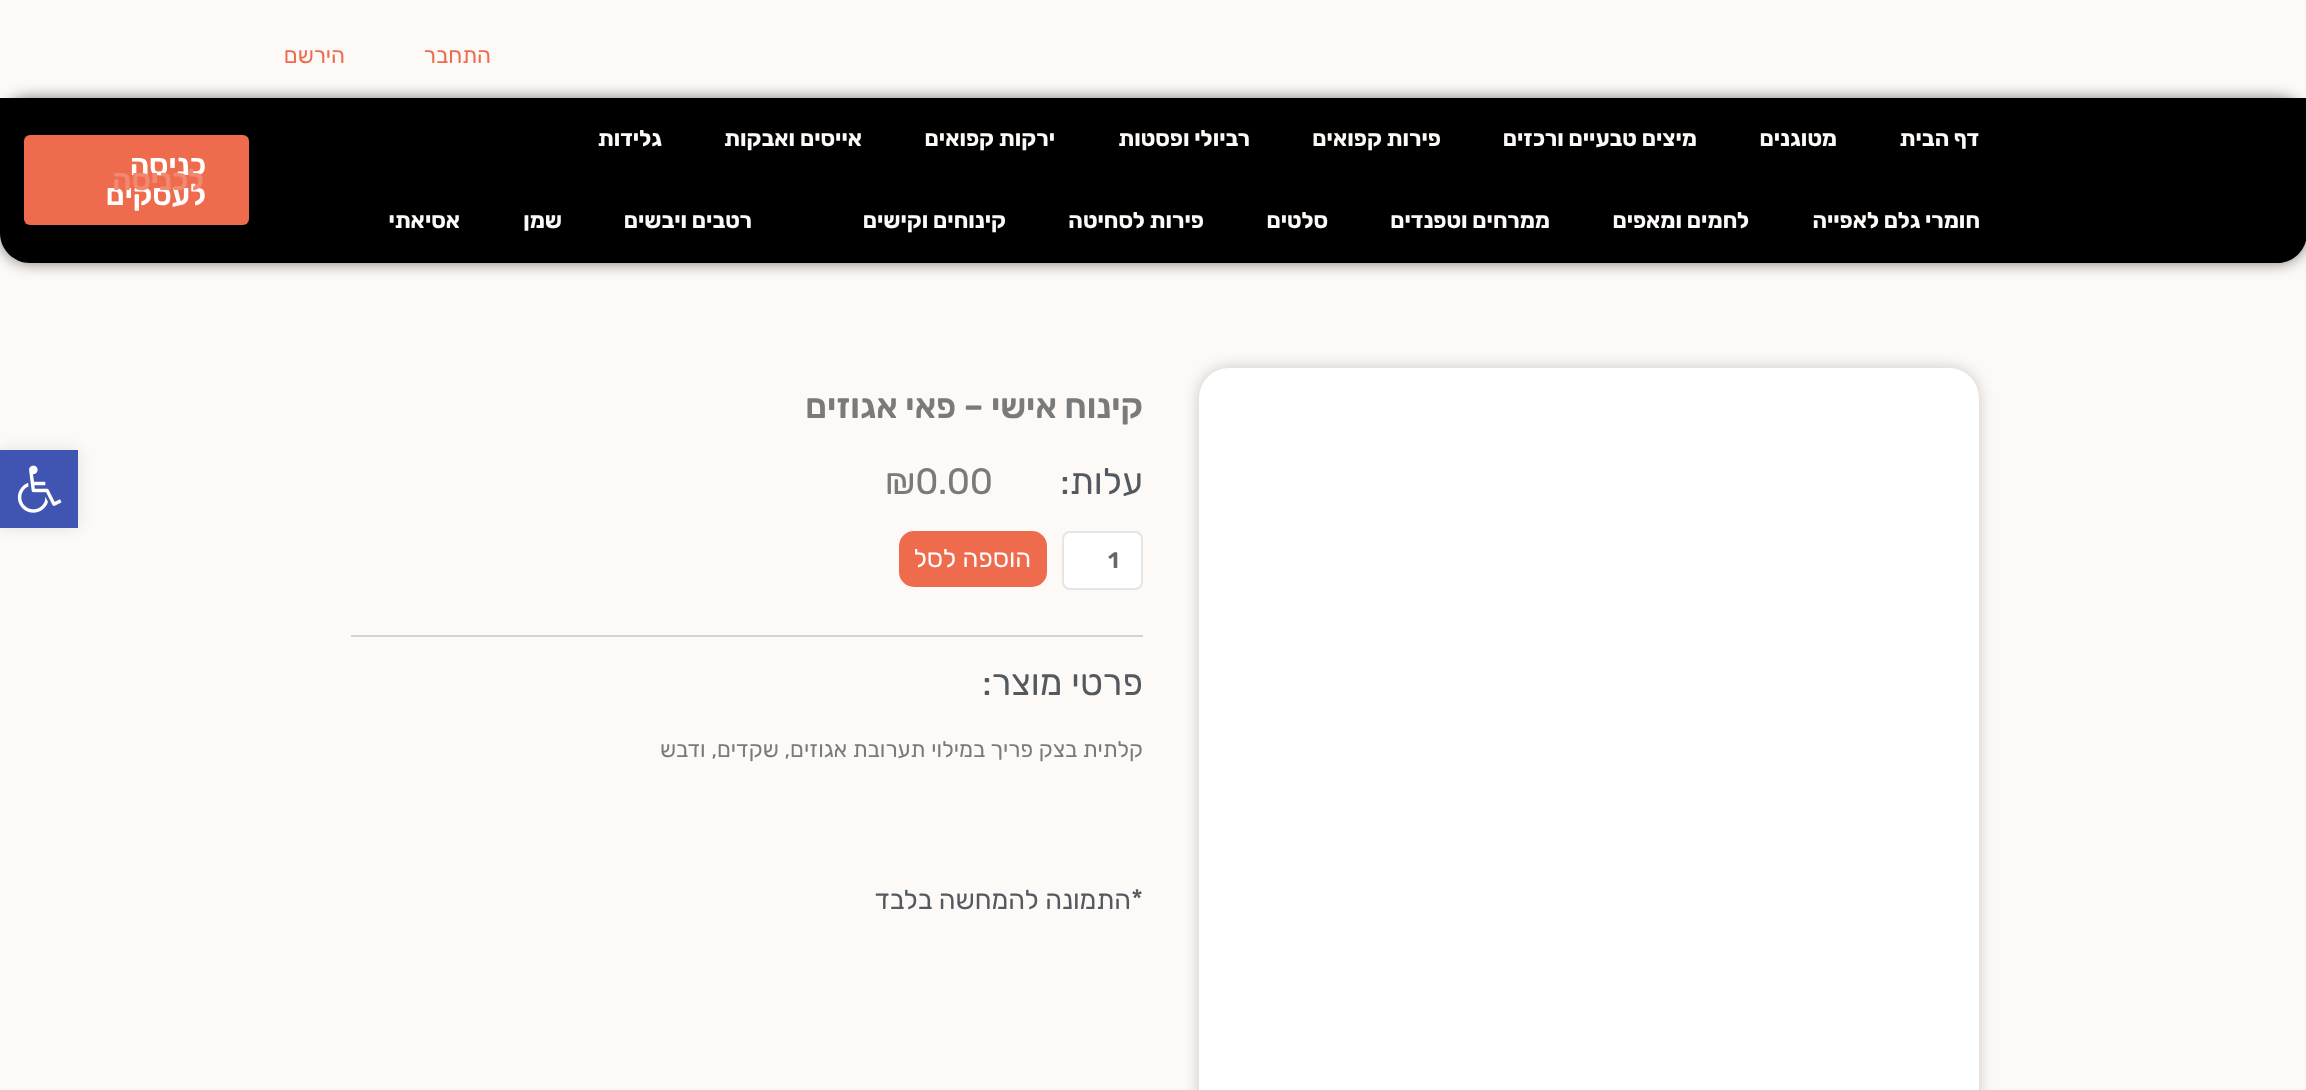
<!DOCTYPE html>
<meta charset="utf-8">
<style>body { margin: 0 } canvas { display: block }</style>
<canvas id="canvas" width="2306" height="1090"></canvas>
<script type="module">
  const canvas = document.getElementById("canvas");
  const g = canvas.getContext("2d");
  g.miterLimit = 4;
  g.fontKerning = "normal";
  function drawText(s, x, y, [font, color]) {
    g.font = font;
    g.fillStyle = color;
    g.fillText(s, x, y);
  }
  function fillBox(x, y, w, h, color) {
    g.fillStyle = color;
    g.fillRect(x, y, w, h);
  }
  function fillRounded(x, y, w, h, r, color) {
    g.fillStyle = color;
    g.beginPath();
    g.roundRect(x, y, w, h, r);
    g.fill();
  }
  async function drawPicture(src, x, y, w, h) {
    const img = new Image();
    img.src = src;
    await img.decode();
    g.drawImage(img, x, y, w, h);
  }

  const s1 = ["22.5px Rubik", "#EE6C4D"];
  const s2 = ["bold 22.5px Rubik", "#FCF9F6"];
  const s3 = ["600 30px Rubik", "#FFFFFF"];
  const s4 = ["600 30px Rubik", "#F1886F"];
  const s5 = ["600 34.5px Rubik", "#7A7A7A"];
  const s6 = ["36.5px Rubik", "#54595F"];
  const s7 = ["36.5px Rubik", "#7A7A7A"];
  const s8 = ["600 22.5px Rubik", "#666666"];
  const s9 = ["25.5px Rubik", "#FFFFFF"];
  const s10 = ["22.5px Rubik", "#7A7A7A"];
  const s11 = ["27px Rubik", "#54595F"];

  fillBox(0, 0, 2306, 1090, "#FCF9F6");
  g.direction = "rtl";
  drawText("התחבר", 491, 63, s1);
  drawText("הירשם", 345, 63, s1);
  g.fillStyle = "rgba(0, 0, 0, 0.5)";
  g.filter = "blur(7.5px)";
  g.beginPath();
  g.roundRect(0, 98, 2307, 165, 30);
  g.fill();
  g.filter = "none";
  g.fillStyle = "#000000";
  g.beginPath();
  g.moveTo(0, 98);
  g.lineTo(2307, 98);
  g.lineTo(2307, 233);
  g.bezierCurveTo(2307, 249.5, 2293.5, 263, 2277, 263);
  g.lineTo(30, 263);
  g.bezierCurveTo(13.5, 263, 0, 249.5, 0, 233);
  g.closePath();
  g.fill();
  drawText("דף הבית", 1979, 146, s2);
  drawText("מטוגנים", 1837, 146, s2);
  drawText("מיצים טבעיים ורכזים", 1697, 146, s2);
  drawText("פירות קפואים", 1441, 146, s2);
  drawText("רביולי ופסטות", 1250, 146, s2);
  drawText("ירקות קפואים", 1055, 146, s2);
  drawText("אייסים ואבקות", 862, 146, s2);
  drawText("גלידות", 662, 146, s2);
  drawText("חומרי גלם לאפייה", 1980, 228, s2);
  drawText("לחמים ומאפים", 1749, 228, s2);
  drawText("ממרחים וטפנדים", 1550, 228, s2);
  drawText("סלטים", 1328, 228, s2);
  drawText("פירות לסחיטה", 1204, 228, s2);
  drawText("קינוחים וקישים", 1006, 228, s2);
  drawText("רטבים ויבשים", 752, 228, s2);
  drawText("שמן", 562, 228, s2);
  drawText("אסיאתי", 460, 228, s2);
  fillRounded(24, 135, 225, 90, 6, "#EE6C4D");
  drawText("כניסה", 206, 175, s3);
  drawText("לעסקים", 206, 205, s3);
  drawText("לכניסה", 204, 190, s4);
  g.fillStyle = "rgba(0, 0, 0, 0.2)";
  g.filter = "blur(7.5px)";
  g.beginPath();
  g.roundRect(1199, 368, 780, 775, 30);
  g.fill();
  g.filter = "none";
  fillRounded(1199, 368, 780, 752, 30, "#FFFFFF");
  drawText("קינוח אישי – פאי אגוזים", 1143, 418, s5);
  drawText("עלות:", 1143, 494, s6);
  g.direction = "ltr";
  drawText("₪0.00", 885, 494, s7);
  g.fillStyle = "#FFFFFF";
  g.beginPath();
  g.roundRect(1063, 532, 79, 57, 7);
  g.fill();
  g.strokeStyle = "#E5E5E5";
  g.lineWidth = 2;
  g.stroke();
  drawText("1", 1108, 568, s8);
  fillRounded(899, 531, 148, 56, 15, "#EE6C4D");
  g.direction = "rtl";
  drawText("הוספה לסל", 1031, 567, s9);
  fillBox(351, 635, 792, 2, "#D5D2D2");
  drawText("פרטי מוצר:", 1143, 695, s6);
  g.wordSpacing = "0.25px";
  drawText("קלתית בצק פריך במילוי תערובת אגוזים, שקדים, ודבש", 1143, 757, s10);
  g.wordSpacing = "0px";
  drawText("*התמונה להמחשה בלבד", 1143, 909, s11);
  g.fillStyle = "rgba(0, 0, 0, 0.1)";
  g.filter = "blur(7.5px)";
  g.beginPath();
  g.rect(0, 450, 78, 78);
  g.fill();
  g.filter = "none";
  fillBox(0, 450, 78, 78, "#4054B2");
  await drawPicture("pic1.png", 17, 465, 45, 48);
</script>
